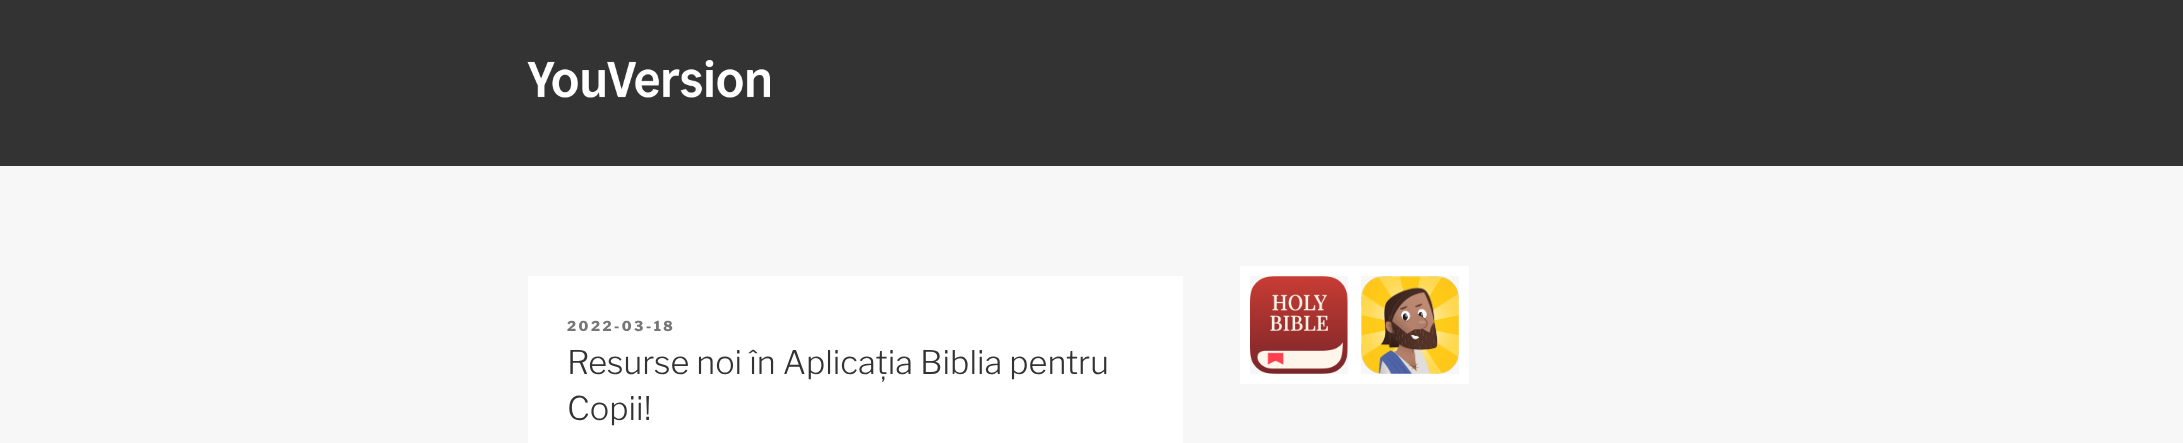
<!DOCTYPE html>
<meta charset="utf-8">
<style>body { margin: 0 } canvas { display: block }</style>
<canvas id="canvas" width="2183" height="443"></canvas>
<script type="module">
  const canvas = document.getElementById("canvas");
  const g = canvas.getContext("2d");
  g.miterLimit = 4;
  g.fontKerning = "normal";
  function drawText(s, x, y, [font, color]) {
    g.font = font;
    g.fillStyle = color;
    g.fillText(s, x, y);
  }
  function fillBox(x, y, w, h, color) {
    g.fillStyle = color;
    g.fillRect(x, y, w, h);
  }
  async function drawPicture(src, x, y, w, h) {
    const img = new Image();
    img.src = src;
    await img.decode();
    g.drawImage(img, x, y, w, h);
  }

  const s1 = ["800 13.75px Libre Franklin", "#767676"];
  const s2 = ["300 32.5px Libre Franklin", "#333333"];

  fillBox(0, 0, 2183, 443, "#333333");
  await drawPicture("pic1.png", 527, 60, 243, 38);
  fillBox(0, 166, 2183, 277, "#F7F7F7");
  fillBox(528, 276, 655, 167, "#FFFFFF");
  g.letterSpacing = "2.5px";
  drawText("2022-03-18", 567, 331, s1);
  g.letterSpacing = "0px";
  drawText("Resurse noi în Aplicația Biblia pentru", 567, 374, s2);
  drawText("Copii!", 567, 420, s2);
  g.strokeStyle = "#FFFFFF";
  g.lineWidth = 10;
  g.strokeRect(1245, 271, 108, 108);
  g.strokeRect(1356, 271, 108, 108);
  await drawPicture("pic2.png", 1250, 276, 98, 98);
  await drawPicture("pic3.png", 1361, 276, 98, 98);
</script>
